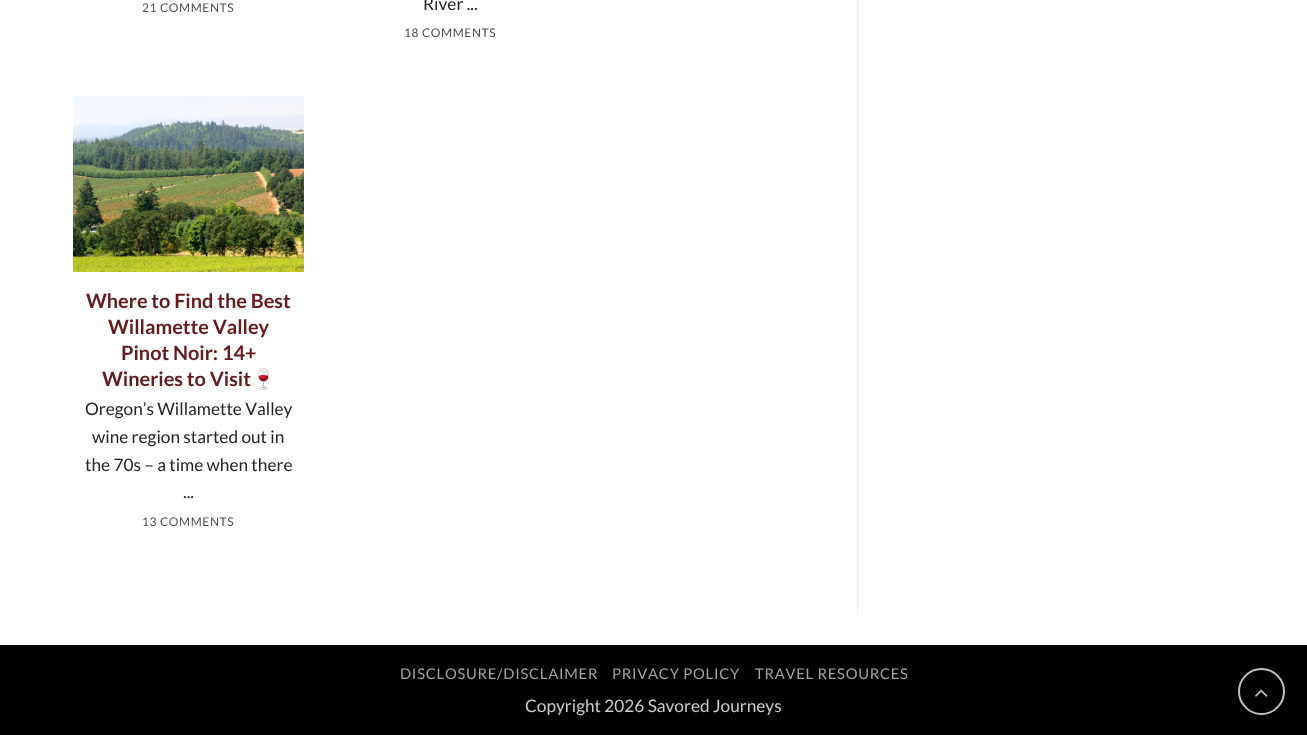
<!DOCTYPE html>
<meta charset="utf-8">
<style>body { margin: 0 } canvas { display: block }</style>
<canvas id="canvas" width="1307" height="735"></canvas>
<script type="module">
  const canvas = document.getElementById("canvas");
  const g = canvas.getContext("2d");
  g.miterLimit = 4;
  g.fontKerning = "none";
  function drawText(s, x, y, [font, color]) {
    g.font = font;
    g.fillStyle = color;
    g.fillText(s, x, y);
  }
  function fillBox(x, y, w, h, color) {
    g.fillStyle = color;
    g.fillRect(x, y, w, h);
  }
  async function drawPicture(src, x, y, w, h) {
    const img = new Image();
    img.src = src;
    await img.decode();
    g.drawImage(img, x, y, w, h);
  }

  const s1 = ["12px Lato", "#504F4F"];
  const s2 = ["17.25px Lato", "#242323"];
  const s3 = ["bold 19.9px Lato", "#641B1B"];
  const s4 = ["bold 19.9px Noto Color Emoji", "#641B1B"];
  const s5 = ["14.75px Lato", "#A3A3A3"];
  const s6 = ["17.25px Lato", "#CCCCCC"];

  fillBox(0, 0, 1307, 735, "#FFFFFF");
  g.letterSpacing = "0.6px";
  drawText("21 COMMENTS", 142, 12, s1);
  g.letterSpacing = "0px";
  drawText("River ...", 423, 10, s2);
  g.letterSpacing = "0.6px";
  drawText("18 COMMENTS", 404, 37, s1);
  await drawPicture("pic1.png", 73, 96, 231, 176);
  g.letterSpacing = "0px";
  drawText("Where to Find the Best", 86, 308, s3);
  drawText("Willamette Valley", 108, 334, s3);
  drawText("Pinot Noir: 14+", 121, 360, s3);
  drawText("Wineries to Visit", 102, 386, s3);
  drawText("🍷", 251, 386, s4);
  drawText("Oregon’s Willamette Valley", 85, 415, s2);
  drawText("wine region started out in", 92, 443, s2);
  drawText("the 70s – a time when there", 85, 471, s2);
  drawText("...", 183, 498, s2);
  g.letterSpacing = "0.6px";
  drawText("13 COMMENTS", 142, 526, s1);
  fillBox(857, 0, 1, 615, "#ECECEC");
  fillBox(0, 645, 1307, 90, "#000000");
  g.letterSpacing = "0.75px";
  drawText("DISCLOSURE/DISCLAIMER", 400, 679, s5);
  drawText("PRIVACY POLICY", 612, 679, s5);
  drawText("TRAVEL RESOURCES", 755, 679, s5);
  g.letterSpacing = "0px";
  drawText("Copyright 2026 Savored Journeys", 525, 712, s6);
  g.beginPath();
  g.arc(1261.5, 691.5, 22.5, 0, Math.PI * 2);
  g.strokeStyle = "#C0C0C0";
  g.lineWidth = 2;
  g.stroke();
  await drawPicture("pic2.png", 1255, 689, 13, 8);
</script>
